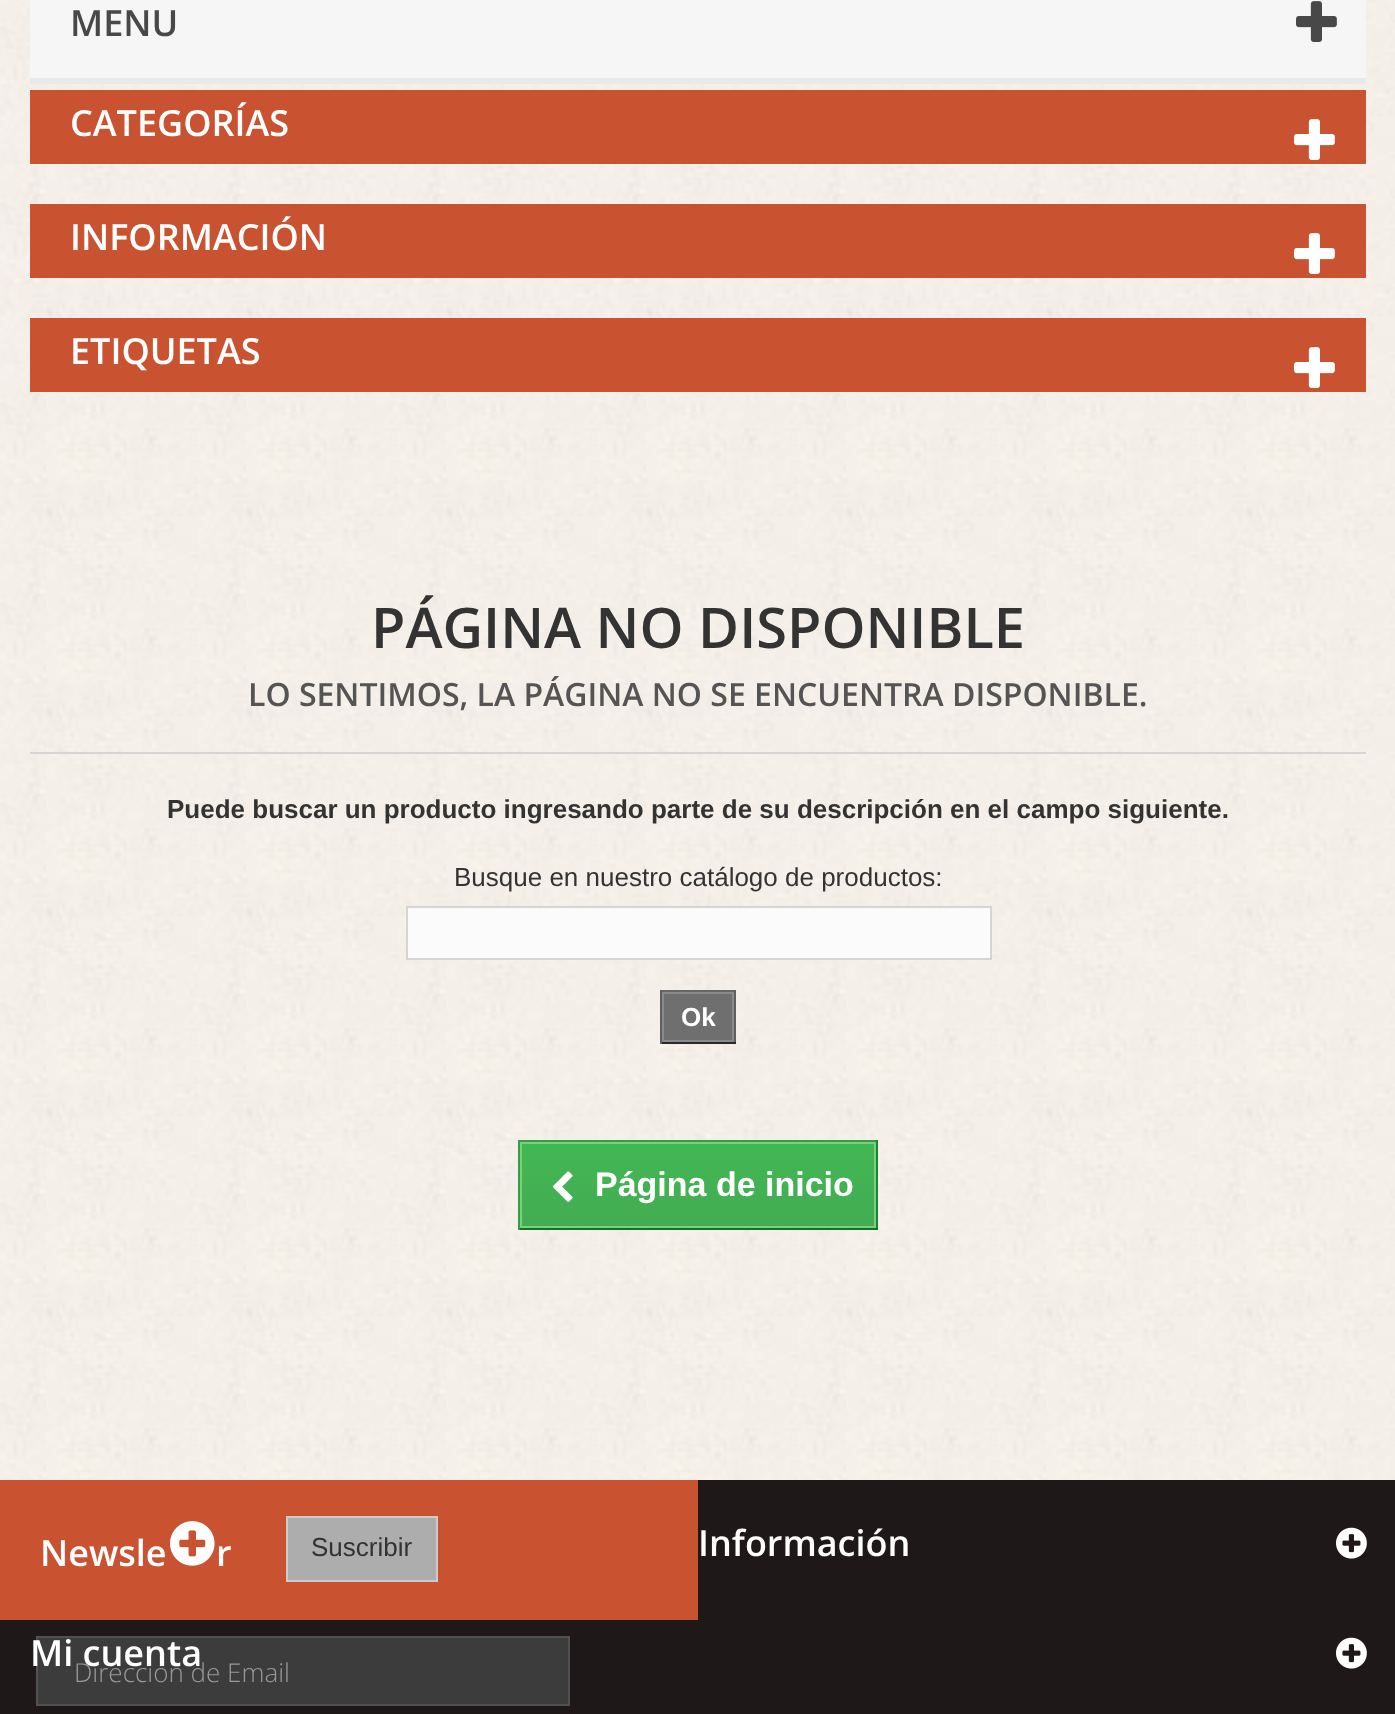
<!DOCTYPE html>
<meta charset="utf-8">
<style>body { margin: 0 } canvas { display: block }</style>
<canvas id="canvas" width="1395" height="1714"></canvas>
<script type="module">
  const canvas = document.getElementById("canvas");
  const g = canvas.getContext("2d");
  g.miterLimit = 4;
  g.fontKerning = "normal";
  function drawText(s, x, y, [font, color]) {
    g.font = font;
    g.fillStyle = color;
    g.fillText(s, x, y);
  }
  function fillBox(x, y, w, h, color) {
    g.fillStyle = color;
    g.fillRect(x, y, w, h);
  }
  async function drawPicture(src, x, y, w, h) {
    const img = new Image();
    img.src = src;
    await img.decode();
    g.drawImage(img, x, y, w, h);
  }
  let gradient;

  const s1 = ["600 36px Open Sans", "#484848"];
  const s2 = ["600 36px Open Sans", "#FFFFFF"];
  const s3 = ["600 56px Open Sans", "#333333"];
  const s4 = ["600 32px Open Sans", "#555454"];
  const s5 = ["bold 26px Liberation Sans", "#333333"];
  const s6 = ["26px Liberation Sans", "#333333"];
  const s7 = ["bold 26px Liberation Sans", "#FFFFFF"];
  const s8 = ["bold 34px Liberation Sans", "#FFFFFF"];
  const s9 = ["300 26px Open Sans", "#999999"];

  fillBox(0, 0, 1395, 1714, "#FFFFFF");
  await drawPicture("pic1.png", 0, 0, 1395, 84);
  fillBox(30, 0, 1336, 78, "#F6F6F6");
  fillBox(30, 78, 1336, 6, "#E9E9E9");
  drawText("MENU", 70, 36, s1);
  await drawPicture("pic2.png", 1296, 1, 41, 41);
  await drawPicture("pic3.png", 0, 84, 1395, 1396);
  fillBox(30, 90, 1336, 74, "#C95331");
  drawText("CATEGORÍAS", 70, 136, s2);
  await drawPicture("pic4.png", 1294, 119, 41, 41);
  fillBox(30, 204, 1336, 74, "#C95331");
  drawText("INFORMACIÓN", 70, 250, s2);
  await drawPicture("pic4.png", 1294, 233, 41, 41);
  fillBox(30, 318, 1336, 74, "#C95331");
  drawText("ETIQUETAS", 70, 364, s2);
  await drawPicture("pic4.png", 1294, 347, 41, 41);
  drawText("PÁGINA NO DISPONIBLE", 371, 648, s3);
  fillBox(30, 752, 1336, 2, "#D6D4D4");
  drawText("LO SENTIMOS, LA PÁGINA NO SE ENCUENTRA DISPONIBLE.", 248, 706, s4);
  drawText("Puede buscar un producto ingresando parte de su descripción en el campo siguiente.", 167, 818, s5);
  drawText("Busque en nuestro catálogo de productos:", 454, 886, s6);
  g.fillStyle = "#FBFBFB";
  g.beginPath();
  g.rect(407, 907, 584, 52);
  g.fill();
  g.strokeStyle = "#D6D4D4";
  g.lineWidth = 2;
  g.stroke();
  fillBox(660, 990, 76, 2, "#666666");
  fillBox(734, 990, 2, 54, "#5F5F5F");
  fillBox(660, 1042, 76, 2, "#292929");
  fillBox(660, 990, 2, 54, "#5F5F5F");
  g.fillStyle = "#6F6F6F";
  g.beginPath();
  g.rect(663, 993, 70, 48);
  g.fill();
  g.strokeStyle = "#8B8A8A";
  g.stroke();
  drawText("Ok", 681, 1026, s7);
  gradient = g.createLinearGradient(698, 1142, 698, 1228);
  gradient.addColorStop(0, "#43B754");
  gradient.addColorStop(1, "#42AC52");
  g.fillStyle = gradient;
  g.fillRect(522, 1144, 352, 82);
  fillBox(518, 1140, 360, 2, "#399A49");
  fillBox(876, 1140, 2, 90, "#247F32");
  fillBox(518, 1228, 360, 2, "#1A6D27");
  fillBox(518, 1140, 2, 90, "#399A49");
  g.strokeStyle = "#74D578";
  g.strokeRect(521, 1143, 354, 84);
  await drawPicture("pic5.png", 552, 1171, 21, 31);
  drawText("Página de inicio", 595, 1196, s8);
  fillBox(0, 1480, 1395, 234, "#1F1818");
  fillBox(0, 1480, 698, 140, "#C95230");
  g.fillStyle = "#ADADAD";
  g.beginPath();
  g.rect(287, 1517, 150, 64);
  g.fill();
  g.strokeStyle = "#CCCCCC";
  g.stroke();
  drawText("Suscribir", 311, 1556, s6);
  g.fillStyle = "#3C3C3C";
  g.beginPath();
  g.rect(37, 1637, 532, 68);
  g.fill();
  g.strokeStyle = "#515151";
  g.stroke();
  drawText("Dirección de Email", 74, 1682, s9);
  drawText("Newsle", 40, 1566, s2);
  await drawPicture("pic6.png", 170, 1521, 45, 45);
  drawText("r", 216, 1566, s2);
  drawText("Información", 698, 1556, s2);
  await drawPicture("pic7.png", 1336, 1527, 31, 32);
  drawText("Mi cuenta", 30, 1666, s2);
  await drawPicture("pic7.png", 1336, 1637, 31, 32);
</script>
